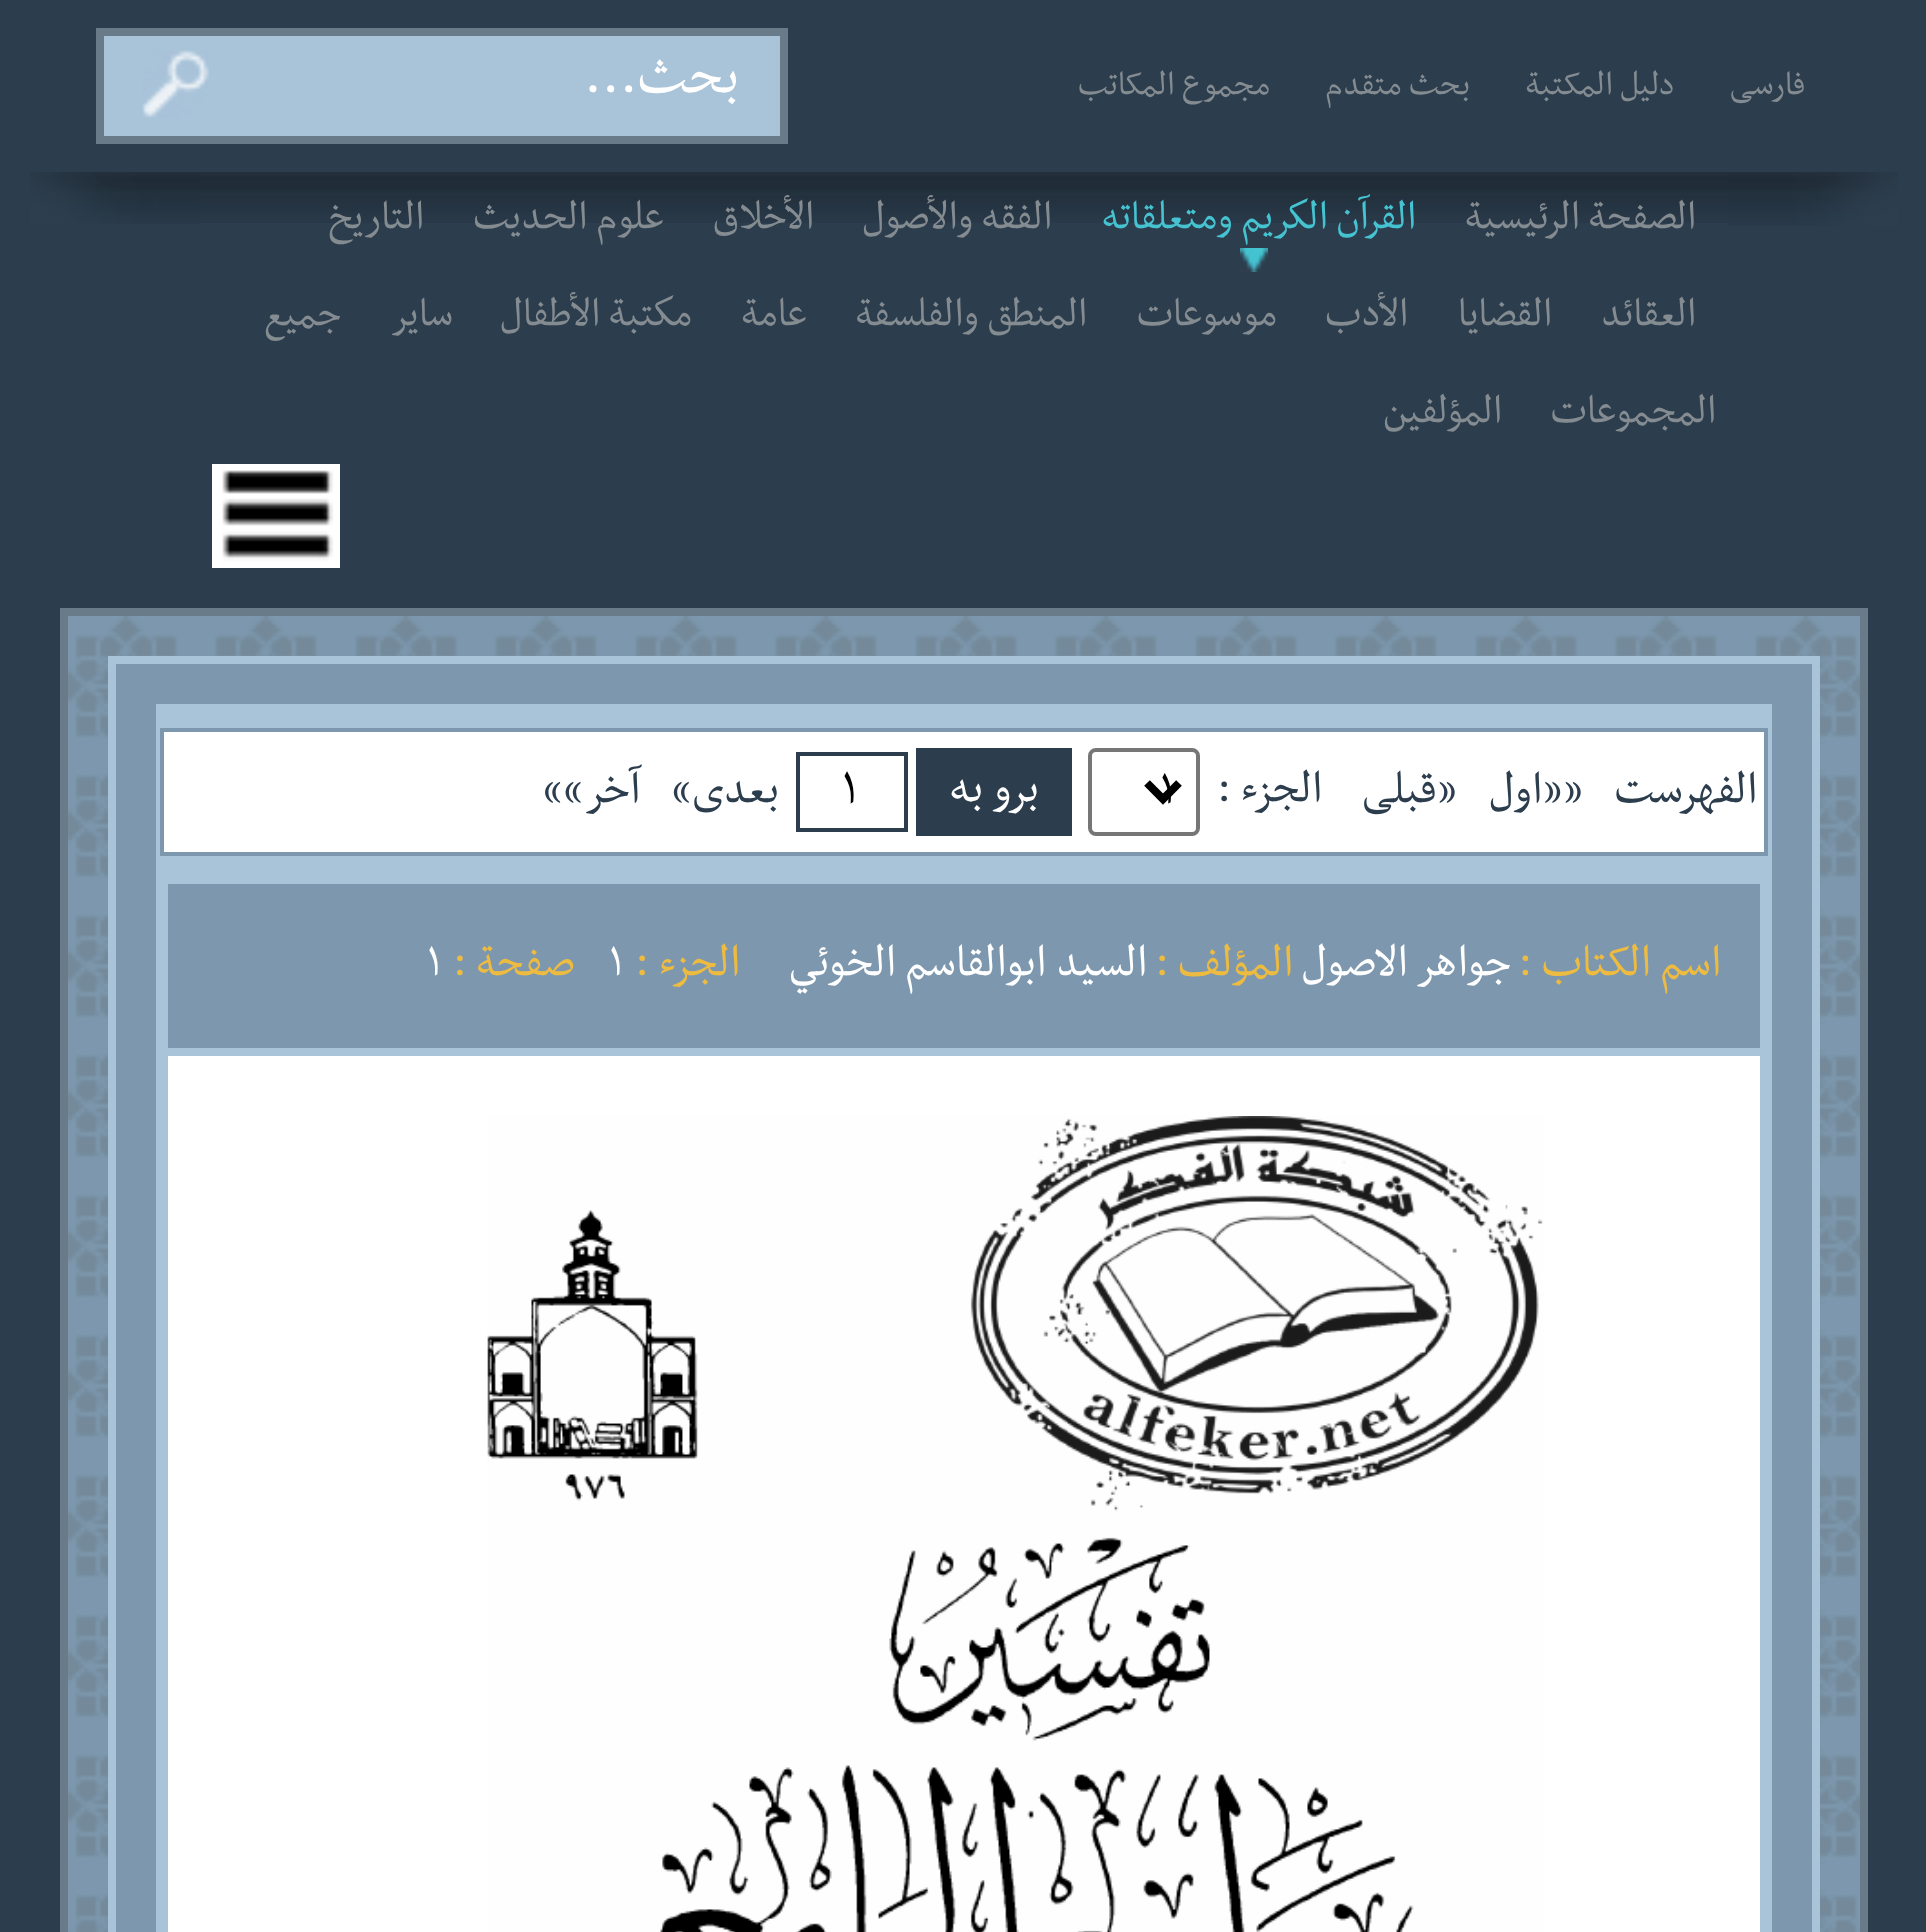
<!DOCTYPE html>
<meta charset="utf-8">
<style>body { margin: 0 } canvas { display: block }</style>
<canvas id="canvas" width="1926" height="1932"></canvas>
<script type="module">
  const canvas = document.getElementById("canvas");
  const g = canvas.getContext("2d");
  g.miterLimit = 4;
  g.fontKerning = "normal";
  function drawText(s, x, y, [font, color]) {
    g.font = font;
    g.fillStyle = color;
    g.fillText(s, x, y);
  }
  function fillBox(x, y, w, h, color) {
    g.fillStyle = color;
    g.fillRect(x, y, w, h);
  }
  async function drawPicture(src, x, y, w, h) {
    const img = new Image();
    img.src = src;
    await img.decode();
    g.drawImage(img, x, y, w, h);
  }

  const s1 = ["38.5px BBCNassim", "#858C91"];
  const s2 = ["64px BBCNassim", "#FFFFFF"];
  const s3 = ["46px BBCNassim", "#858C91"];
  const s4 = ["46px BBCNassim", "#45C3D1"];
  const s5 = ["51.25px BBCNassim", "#2C3E4E"];
  const s6 = ["53px BBCNassim", "#000000"];
  const s7 = ["53px BBCNassim", "#FFFFFF"];
  const s8 = ["56px BBCNassim", "#000000"];
  const s9 = ["51.25px BBCNassim", "#EEBB41"];
  const s10 = ["51.25px BBCNassim", "#FFFFFF"];

  fillBox(0, 0, 1926, 1932, "#2C3E4E");
  g.direction = "rtl";
  drawText("فارسی", 1805, 94, s1);
  drawText("دلیل المکتبة", 1675, 94, s1);
  drawText("بحث متقدم", 1470, 94, s1);
  drawText("مجموع المکاتب", 1270, 94, s1);
  g.fillStyle = "#A9C3D9";
  g.beginPath();
  g.rect(100, 32, 684, 108);
  g.fill();
  g.strokeStyle = "#697A89";
  g.lineWidth = 8;
  g.stroke();
  drawText("بحث...", 739, 92, s2);
  await drawPicture("pic1.png", 142, 50, 67, 68);
  await drawPicture("pic2.png", 1728, 172, 170, 54);
  await drawPicture("pic3.png", 200, 172, 1528, 51);
  drawText("الصفحة الرئیسیة", 1696, 228, s3);
  drawText("القرآن الكريم ومتعلقاته", 1416, 228, s4);
  drawText("الفقه والأصول", 1052, 228, s3);
  drawText("الأخلاق", 814, 228, s3);
  drawText("علوم الحديث", 664, 228, s3);
  drawText("التاريخ", 424, 228, s3);
  await drawPicture("pic4.png", 1240, 248, 28, 24);
  drawText("العقائد", 1696, 325, s3);
  drawText("القضايا", 1552, 325, s3);
  drawText("الأدب", 1408, 325, s3);
  drawText("موسوعات", 1277, 325, s3);
  drawText("المنطق والفلسفة", 1087, 325, s3);
  drawText("عامة", 807, 325, s3);
  drawText("مكتبة الأطفال", 692, 325, s3);
  drawText("سایر", 453, 325, s3);
  drawText("جميع", 341, 325, s3);
  drawText("المجموعات", 1716, 422, s3);
  drawText("المؤلفین", 1502, 422, s3);
  await drawPicture("pic5.png", 30, 172, 170, 52);
  await drawPicture("pic6.png", 212, 464, 128, 104);
  await drawPicture("pic7.png", 68, 616, 1792, 1316);
  g.strokeRect(64, 612, 1800, 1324);
  g.fillStyle = "#7D98AE";
  g.beginPath();
  g.rect(112, 660, 1704, 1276);
  g.fill();
  g.strokeStyle = "#A9C3D9";
  g.stroke();
  fillBox(156, 704, 1616, 1228, "#A9C3D9");
  g.fillStyle = "#FFFFFF";
  g.beginPath();
  g.rect(162, 730, 1604, 124);
  g.fill();
  g.strokeStyle = "#7D98AE";
  g.lineWidth = 4;
  g.stroke();
  drawText("الفهرست", 1757, 802, s5);
  drawText("««اول", 1583, 802, s5);
  drawText("«قبلی", 1457, 802, s5);
  drawText("الجزء :", 1322, 801, s5);
  g.beginPath();
  g.roundRect(1090, 750, 108, 84, 6);
  g.strokeStyle = "#767676";
  g.stroke();
  g.beginPath();
  g.moveTo(1147, 783);
  g.lineTo(1163, 799);
  g.lineTo(1179, 783);
  g.strokeStyle = "#000000";
  g.lineWidth = 8;
  g.stroke();
  g.direction = "ltr";
  drawText("1", 1160, 803, s6);
  fillBox(916, 748, 156, 88, "#2C3E4E");
  g.direction = "rtl";
  drawText("برو به", 1039, 801, s7);
  g.strokeStyle = "#2C3E4E";
  g.lineWidth = 4;
  g.strokeRect(798, 754, 108, 76);
  g.direction = "ltr";
  drawText("1", 842, 803, s8);
  g.direction = "rtl";
  drawText("بعدی»", 779, 802, s5);
  drawText("آخر»»", 640, 802, s5);
  fillBox(168, 884, 1592, 164, "#7D98AE");
  drawText("اسم الکتاب :", 1721, 975, s9);
  drawText("جواهر الاصول", 1511, 975, s10);
  drawText("المؤلف :", 1293, 975, s9);
  drawText("السید ابوالقاسم الخوئي", 1147, 975, s10);
  drawText("الجزء :", 740, 975, s9);
  g.direction = "ltr";
  drawText("1", 609, 975, s10);
  g.direction = "rtl";
  drawText("صفحة :", 575, 975, s9);
  g.direction = "ltr";
  drawText("1", 427, 975, s10);
  fillBox(168, 1056, 1592, 876, "#FFFFFF");
  await drawPicture("pic8.png", 487, 1116, 1056, 816);
</script>
